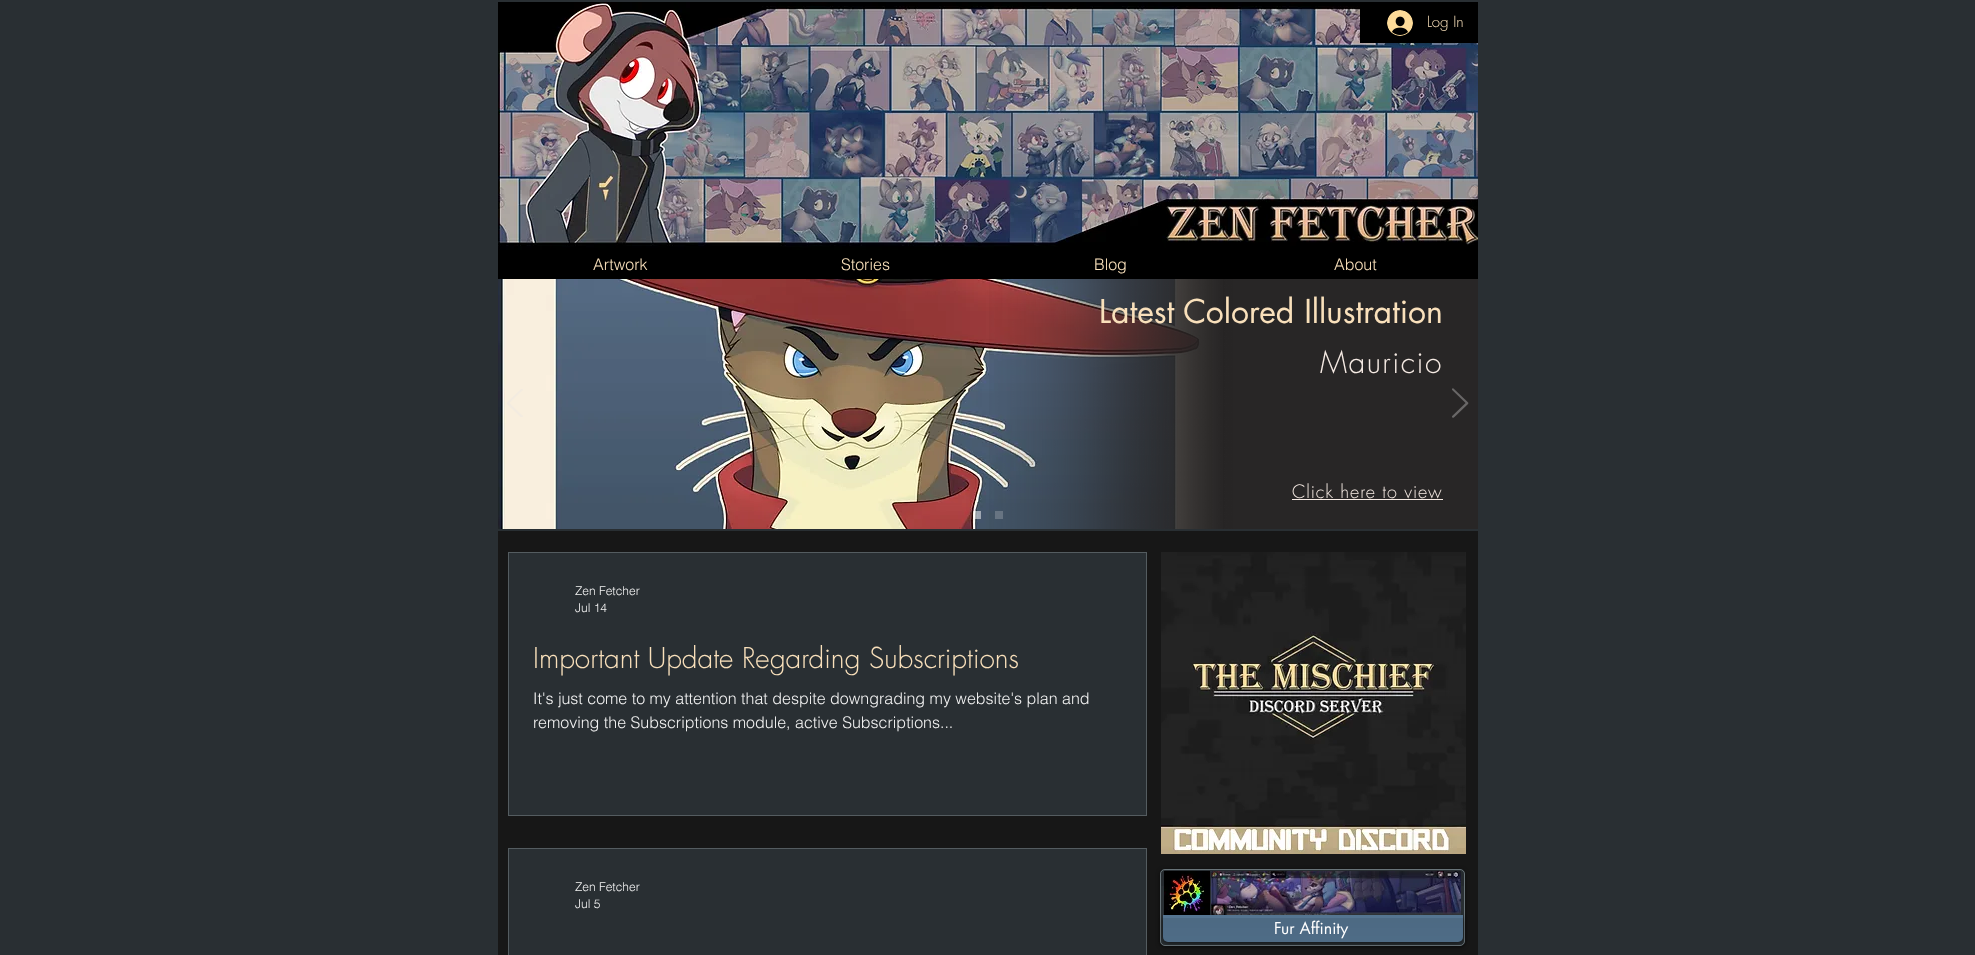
<!DOCTYPE html>
<meta charset="utf-8">
<style>body { margin: 0 } canvas { display: block }</style>
<canvas id="canvas" width="1975" height="955"></canvas>
<script type="module">
  const canvas = document.getElementById("canvas");
  const g = canvas.getContext("2d");
  g.miterLimit = 4;
  g.fontKerning = "normal";
  function drawText(s, x, y, [font, color]) {
    g.font = font;
    g.fillStyle = color;
    g.fillText(s, x, y);
  }
  function fillBox(x, y, w, h, color) {
    g.fillStyle = color;
    g.fillRect(x, y, w, h);
  }
  function fillRounded(x, y, w, h, r, color) {
    g.fillStyle = color;
    g.beginPath();
    g.roundRect(x, y, w, h, r);
    g.fill();
  }
  async function drawPicture(src, x, y, w, h) {
    const img = new Image();
    img.src = src;
    await img.decode();
    g.drawImage(img, x, y, w, h);
  }

  const s1 = ["300 15px futura", "#F9E0BB"];
  const s2 = ["300 16px helvetica", "#F9E0BB"];
  const s3 = ["32px futura", "#F9E0BB"];
  const s4 = ["300 30px futura", "#F6EBE4"];
  const s5 = ["300 18px futura", "#F6EBE4"];
  const s6 = ["300 12px helvetica", "#F2F2F2"];
  const s7 = ["300 28px futura", "#F9E0BB"];
  const s8 = ["300 16px helvetica", "#F2F2F2"];
  const s9 = ["16px futura", "#FFFFFF"];

  fillBox(0, 0, 1975, 955, "#292F33");
  await drawPicture("pic1.png", 498, 2, 980, 248);
  fillBox(1360, 4, 118, 39, "#000000");
  await drawPicture("pic2.png", 1387, 10, 26, 26);
  drawText("Log In", 1427, 27, s1);
  fillBox(498, 250, 980, 29, "#000000");
  drawText("Artwork", 593, 270, s2);
  drawText("Stories", 841, 270, s2);
  drawText("Blog", 1094, 270, s2);
  drawText("About", 1334, 270, s2);
  await drawPicture("pic4.png", 498, 279, 725, 250);
  await drawPicture("pic3.png", 507, 389, 16, 28);
  fillBox(1233, 279, 245, 250, "#282626");
  await drawPicture("pic5.png", 989, 279, 244, 250);
  drawText("Latest Colored Illustration", 1099, 323, s3);
  g.letterSpacing = "1.5px";
  drawText("Mauricio", 1320, 373, s4);
  g.letterSpacing = "0.9px";
  drawText("Click here to view", 1292, 498, s5);
  fillBox(1292, 499, 151, 1, "#F6EBE4");
  await drawPicture("pic6.png", 1452, 388, 17, 30);
  fillBox(973, 511, 8, 8, "rgba(255, 255, 255, 0.49)");
  fillBox(995, 511, 8, 8, "#677482");
  fillBox(498, 531, 980, 424, "#171717");
  g.strokeStyle = "#545C60";
  g.strokeRect(508.5, 552.5, 638, 263);
  fillBox(509, 553, 637, 262, "#292F33");
  g.letterSpacing = "0px";
  drawText("Zen Fetcher", 575, 595, s6);
  drawText("Jul 14", 575, 612, s6);
  drawText("Important Update Regarding Subscriptions", 533, 668, s7);
  drawText("It's just come to my attention that despite downgrading my website's plan and", 533, 704, s8);
  drawText("removing the Subscriptions module, active Subscriptions...", 533, 728, s8);
  g.strokeRect(508.5, 848.5, 638, 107);
  fillBox(509, 849, 637, 106, "#292F33");
  drawText("Zen Fetcher", 575, 891, s6);
  drawText("Jul 5", 575, 908, s6);
  await drawPicture("pic7.png", 1161, 552, 305, 302);
  g.fillStyle = "rgba(0, 0, 0, 0.6)";
  g.filter = "blur(2px)";
  g.beginPath();
  g.roundRect(1160, 870, 305, 77, 5);
  g.fill();
  g.filter = "none";
  fillRounded(1160, 869, 305, 77, 5, "#292F33");
  fillBox(1160, 872, 305, 14, "rgba(0, 0, 0, 0.09)");
  g.beginPath();
  g.roundRect(1160.5, 869.5, 304, 76, 4.5);
  g.strokeStyle = "#687378";
  g.stroke();
  await drawPicture("pic8.png", 1164, 871, 46, 44);
  await drawPicture("pic9.png", 1211, 871, 250, 44);
  g.fillStyle = "rgba(0, 0, 0, 0.6)";
  g.filter = "blur(2px)";
  g.beginPath();
  g.roundRect(1163, 916, 300, 27, 5);
  g.fill();
  g.filter = "none";
  g.fillStyle = "#557591";
  g.beginPath();
  g.roundRect(1163, 915, 300, 27, [0, 0, 5, 5]);
  g.fill();
  await drawPicture("pic10.png", 1163, 918, 300, 24);
  drawText("Fur Affinity", 1274, 934, s9);
</script>
